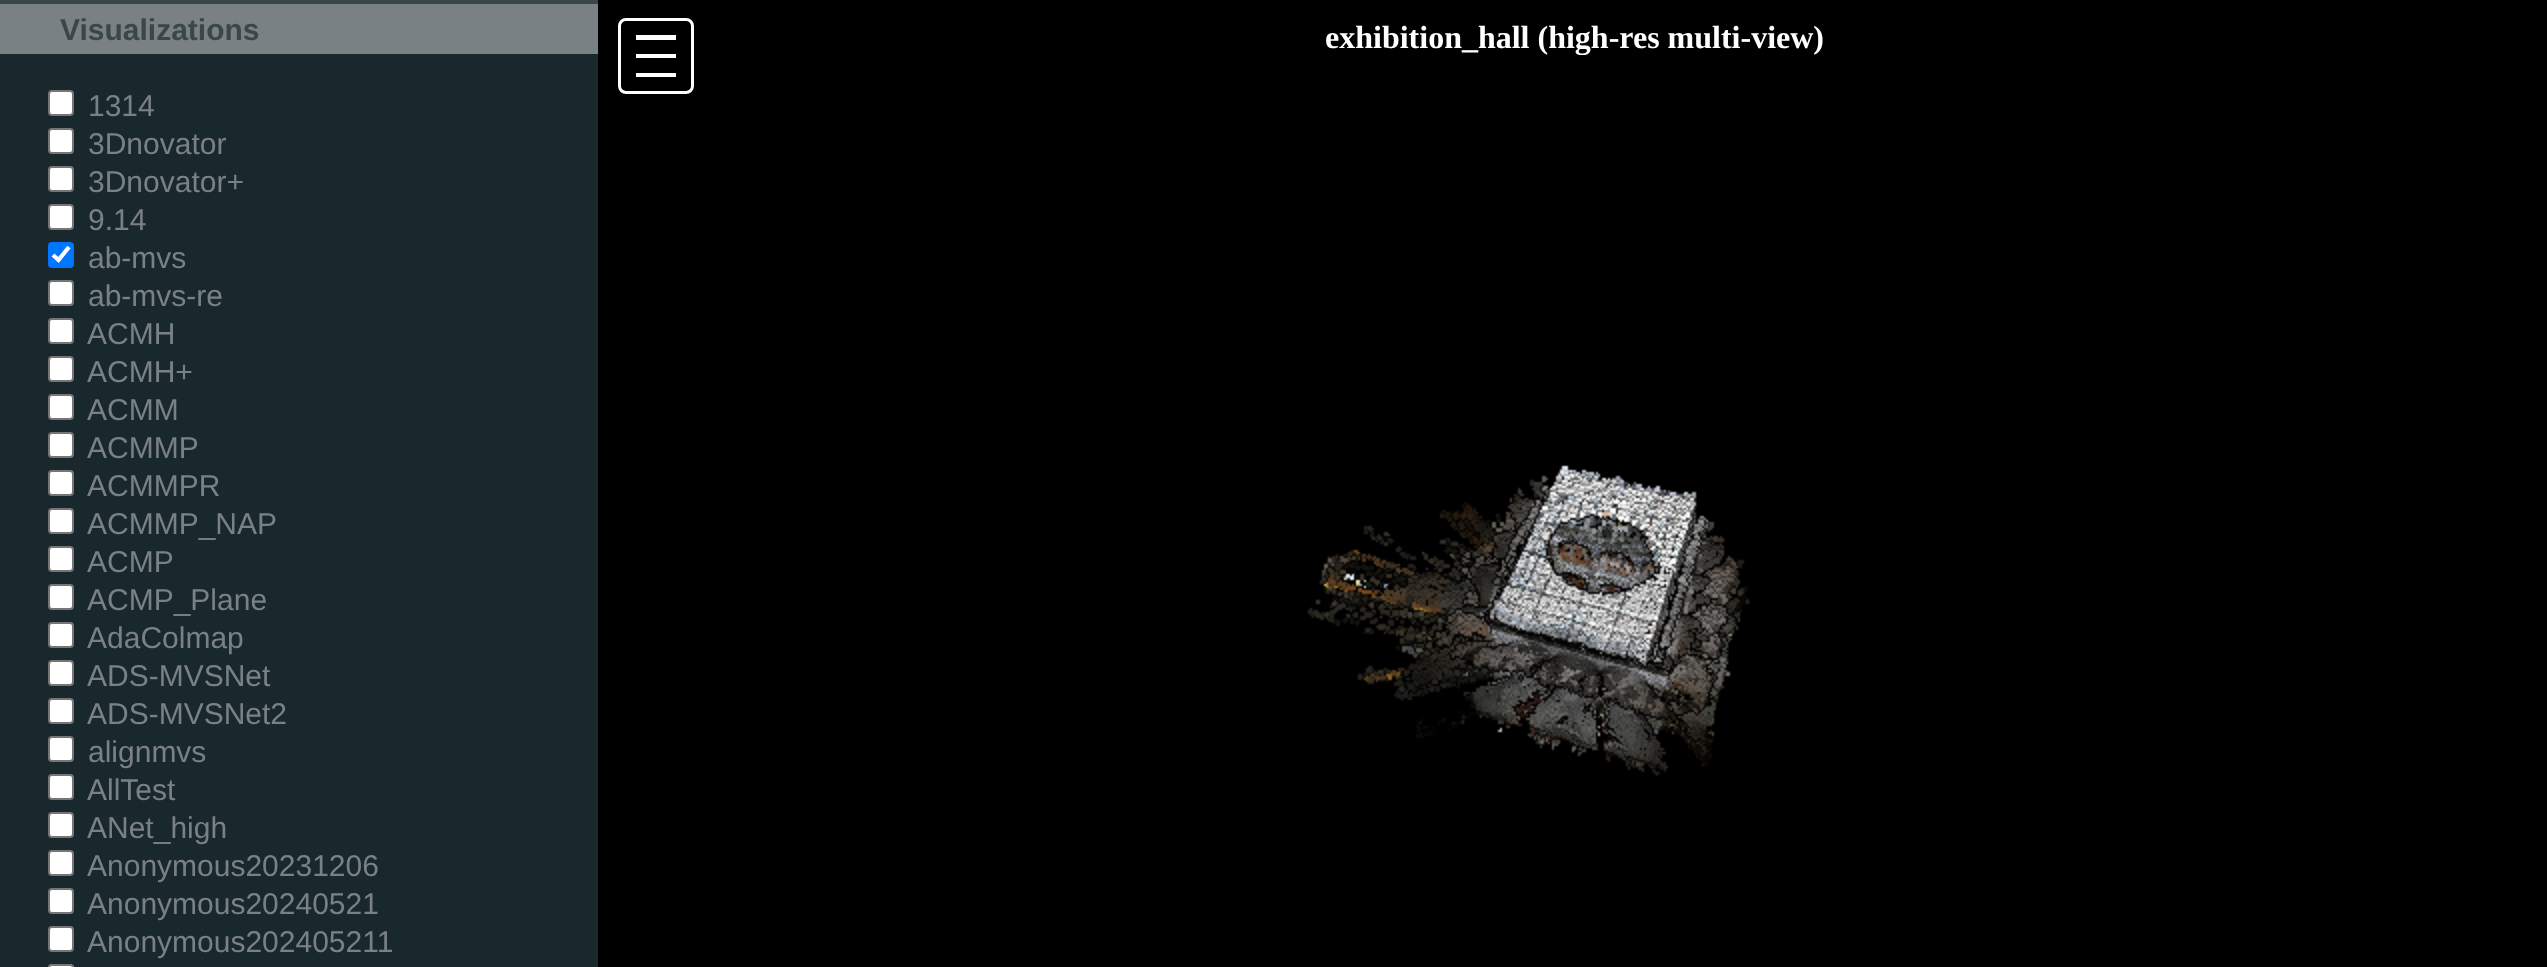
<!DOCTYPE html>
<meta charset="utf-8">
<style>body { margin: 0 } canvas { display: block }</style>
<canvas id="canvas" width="2547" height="967"></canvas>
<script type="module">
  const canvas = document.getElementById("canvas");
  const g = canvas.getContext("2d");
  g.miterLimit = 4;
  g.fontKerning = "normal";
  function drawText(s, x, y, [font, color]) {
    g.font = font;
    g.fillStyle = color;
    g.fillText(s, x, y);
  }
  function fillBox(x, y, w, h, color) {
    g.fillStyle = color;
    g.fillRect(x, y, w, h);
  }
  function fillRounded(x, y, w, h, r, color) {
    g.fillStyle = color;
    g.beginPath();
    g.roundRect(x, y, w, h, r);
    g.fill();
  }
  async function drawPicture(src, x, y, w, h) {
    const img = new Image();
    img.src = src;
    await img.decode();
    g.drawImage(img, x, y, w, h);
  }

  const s1 = ["bold 30px Liberation Sans", "#39474B"];
  const s2 = ["30px Liberation Sans", "#7A8184"];
  const s3 = ["bold 32px Liberation Serif", "#FFFFFF"];

  fillBox(0, 0, 2547, 967, "#000000");
  fillBox(0, 0, 598, 4, "#39474B");
  fillBox(0, 54, 598, 913, "#19282C");
  fillBox(0, 4, 598, 50, "#7A8184");
  drawText("Visualizations", 60, 40, s1);
  g.fillStyle = "#FFFFFF";
  g.beginPath();
  g.roundRect(49, 91, 24, 24, 3);
  g.fill();
  g.strokeStyle = "#767676";
  g.lineWidth = 2;
  g.stroke();
  drawText("1314", 88, 116, s2);
  g.fillStyle = "#FFFFFF";
  g.beginPath();
  g.roundRect(49, 129, 24, 24, 3);
  g.fill();
  g.stroke();
  drawText("3Dnovator", 88, 154, s2);
  g.fillStyle = "#FFFFFF";
  g.beginPath();
  g.roundRect(49, 167, 24, 24, 3);
  g.fill();
  g.stroke();
  drawText("3Dnovator+", 88, 192, s2);
  g.fillStyle = "#FFFFFF";
  g.beginPath();
  g.roundRect(49, 205, 24, 24, 3);
  g.fill();
  g.stroke();
  drawText("9.14", 88, 230, s2);
  fillRounded(48, 242, 26, 26, 4, "#0075FF");
  g.beginPath();
  g.moveTo(53, 255);
  g.lineTo(58.5, 260);
  g.lineTo(69, 247);
  g.strokeStyle = "#FFFFFF";
  g.lineWidth = 4.2;
  g.stroke();
  drawText("ab-mvs", 88, 268, s2);
  g.fillStyle = "#FFFFFF";
  g.beginPath();
  g.roundRect(49, 281, 24, 24, 3);
  g.fill();
  g.strokeStyle = "#767676";
  g.lineWidth = 2;
  g.stroke();
  drawText("ab-mvs-re", 88, 306, s2);
  g.fillStyle = "#FFFFFF";
  g.beginPath();
  g.roundRect(49, 319, 24, 24, 3);
  g.fill();
  g.stroke();
  drawText("ACMH", 87, 344, s2);
  g.fillStyle = "#FFFFFF";
  g.beginPath();
  g.roundRect(49, 357, 24, 24, 3);
  g.fill();
  g.stroke();
  drawText("ACMH+", 87, 382, s2);
  g.fillStyle = "#FFFFFF";
  g.beginPath();
  g.roundRect(49, 395, 24, 24, 3);
  g.fill();
  g.stroke();
  drawText("ACMM", 87, 420, s2);
  g.fillStyle = "#FFFFFF";
  g.beginPath();
  g.roundRect(49, 433, 24, 24, 3);
  g.fill();
  g.stroke();
  drawText("ACMMP", 87, 458, s2);
  g.fillStyle = "#FFFFFF";
  g.beginPath();
  g.roundRect(49, 471, 24, 24, 3);
  g.fill();
  g.stroke();
  drawText("ACMMPR", 87, 496, s2);
  g.fillStyle = "#FFFFFF";
  g.beginPath();
  g.roundRect(49, 509, 24, 24, 3);
  g.fill();
  g.stroke();
  drawText("ACMMP_NAP", 87, 534, s2);
  g.fillStyle = "#FFFFFF";
  g.beginPath();
  g.roundRect(49, 547, 24, 24, 3);
  g.fill();
  g.stroke();
  drawText("ACMP", 87, 572, s2);
  g.fillStyle = "#FFFFFF";
  g.beginPath();
  g.roundRect(49, 585, 24, 24, 3);
  g.fill();
  g.stroke();
  drawText("ACMP_Plane", 87, 610, s2);
  g.fillStyle = "#FFFFFF";
  g.beginPath();
  g.roundRect(49, 623, 24, 24, 3);
  g.fill();
  g.stroke();
  drawText("AdaColmap", 87, 648, s2);
  g.fillStyle = "#FFFFFF";
  g.beginPath();
  g.roundRect(49, 661, 24, 24, 3);
  g.fill();
  g.stroke();
  drawText("ADS-MVSNet", 87, 686, s2);
  g.fillStyle = "#FFFFFF";
  g.beginPath();
  g.roundRect(49, 699, 24, 24, 3);
  g.fill();
  g.stroke();
  drawText("ADS-MVSNet2", 87, 724, s2);
  g.fillStyle = "#FFFFFF";
  g.beginPath();
  g.roundRect(49, 737, 24, 24, 3);
  g.fill();
  g.stroke();
  drawText("alignmvs", 88, 762, s2);
  g.fillStyle = "#FFFFFF";
  g.beginPath();
  g.roundRect(49, 775, 24, 24, 3);
  g.fill();
  g.stroke();
  drawText("AllTest", 87, 800, s2);
  g.fillStyle = "#FFFFFF";
  g.beginPath();
  g.roundRect(49, 813, 24, 24, 3);
  g.fill();
  g.stroke();
  drawText("ANet_high", 87, 838, s2);
  g.fillStyle = "#FFFFFF";
  g.beginPath();
  g.roundRect(49, 851, 24, 24, 3);
  g.fill();
  g.stroke();
  drawText("Anonymous20231206", 87, 876, s2);
  g.fillStyle = "#FFFFFF";
  g.beginPath();
  g.roundRect(49, 889, 24, 24, 3);
  g.fill();
  g.stroke();
  drawText("Anonymous20240521", 87, 914, s2);
  g.fillStyle = "#FFFFFF";
  g.beginPath();
  g.roundRect(49, 927, 24, 24, 3);
  g.fill();
  g.stroke();
  drawText("Anonymous202405211", 87, 952, s2);
  g.fillStyle = "#FFFFFF";
  g.beginPath();
  g.moveTo(52, 964);
  g.lineTo(70, 964);
  g.bezierCurveTo(72, 964, 74, 966, 74, 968);
  g.lineTo(48, 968);
  g.bezierCurveTo(48, 966, 50, 964, 52, 964);
  g.closePath();
  g.fill();
  g.beginPath();
  g.roundRect(49, 965, 24, 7, 3);
  g.stroke();
  await drawPicture("pic1.png", 602, 0, 1945, 967);
  g.beginPath();
  g.roundRect(619.5, 19.5, 73, 73, 6.5);
  g.strokeStyle = "#FFFFFF";
  g.lineWidth = 3;
  g.stroke();
  g.beginPath();
  g.roundRect(634.5, 33.5, 43, 8, 1.5);
  g.fill();
  g.strokeStyle = "#000000";
  g.stroke();
  g.beginPath();
  g.roundRect(634.5, 52.5, 43, 7, 1);
  g.fill();
  g.stroke();
  g.beginPath();
  g.roundRect(634.5, 71.5, 43, 7, 1.5);
  g.fill();
  g.stroke();
  drawText("exhibition_hall (high-res multi-view)", 1325, 48, s3);
</script>
